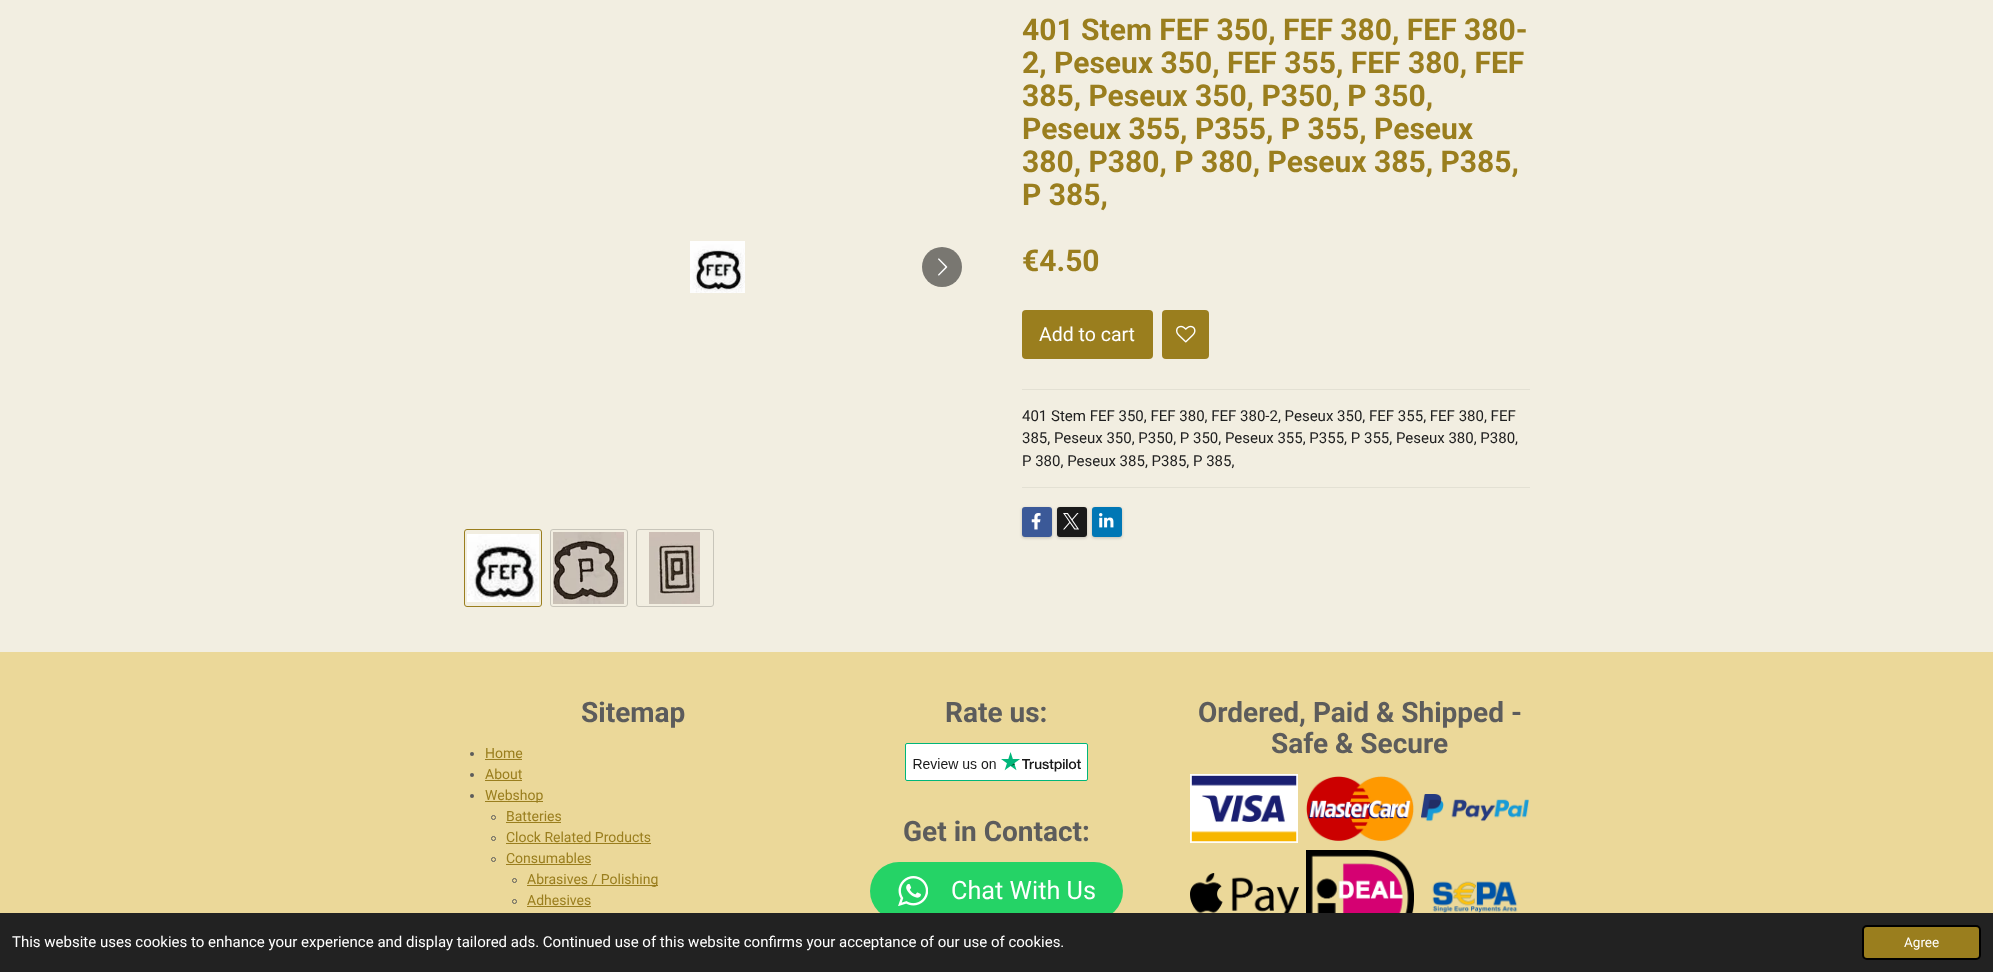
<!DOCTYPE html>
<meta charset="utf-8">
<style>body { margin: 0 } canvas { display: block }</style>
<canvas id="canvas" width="1993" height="972"></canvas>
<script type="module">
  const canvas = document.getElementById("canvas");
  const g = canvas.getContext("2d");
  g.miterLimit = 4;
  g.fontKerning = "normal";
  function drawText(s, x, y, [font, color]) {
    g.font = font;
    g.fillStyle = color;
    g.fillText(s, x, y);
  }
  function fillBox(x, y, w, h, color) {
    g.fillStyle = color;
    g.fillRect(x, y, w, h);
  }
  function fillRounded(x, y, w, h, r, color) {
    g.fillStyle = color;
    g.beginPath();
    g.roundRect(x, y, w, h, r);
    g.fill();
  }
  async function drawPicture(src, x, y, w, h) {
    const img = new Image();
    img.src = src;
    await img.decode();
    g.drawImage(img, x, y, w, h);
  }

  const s1 = ["bold 30px Roboto", "#9A7E1E"];
  const s2 = ["19.5px Roboto", "#FFFFFF"];
  const s3 = ["15px Roboto", "#202020"];
  const s4 = ["bold 28px Roboto", "#5C5C5C"];
  const s5 = ["14px Roboto", "#9A7E1E"];
  const s6 = ["25.25px Roboto", "#FFFFFF"];
  const s7 = ["15px Roboto", "#FFFFFF"];
  const s8 = ["13.5px Roboto", "#FFFFFF"];

  fillBox(0, 0, 1993, 972, "#F2EEE1");
  drawText("401 Stem FEF 350, FEF 380, FEF 380-", 1022, 40, s1);
  drawText("2, Peseux 350, FEF 355, FEF 380, FEF", 1022, 73, s1);
  drawText("385, Peseux 350, P350, P 350,", 1022, 106, s1);
  drawText("Peseux 355, P355, P 355, Peseux", 1022, 139, s1);
  drawText("380, P380, P 380, Peseux 385, P385,", 1022, 172, s1);
  drawText("P 385,", 1022, 205, s1);
  await drawPicture("pic1.png", 690, 241, 55, 52);
  g.fillStyle = "#797771";
  g.beginPath();
  g.arc(942, 267, 20, 0, Math.PI * 2);
  g.fill();
  await drawPicture("pic2.png", 938, 258, 10, 18);
  g.beginPath();
  g.roundRect(464.5, 529.5, 77, 77, 2.5);
  g.strokeStyle = "#9A7E1E";
  g.stroke();
  await drawPicture("pic3.png", 467, 534, 72, 68);
  g.beginPath();
  g.roundRect(550.5, 529.5, 77, 77, 2.5);
  g.strokeStyle = "#C8C5BA";
  g.stroke();
  await drawPicture("pic4.png", 553, 532, 71, 72);
  g.beginPath();
  g.roundRect(636.5, 529.5, 77, 77, 2.5);
  g.stroke();
  await drawPicture("pic5.png", 649, 532, 51, 72);
  drawText("€4.50", 1022, 271, s1);
  fillRounded(1022, 310, 131, 49, 4, "#9A7E1E");
  drawText("Add to cart", 1039, 341, s2);
  fillRounded(1162, 310, 47, 49, 4, "#9A7E1E");
  await drawPicture("pic6.png", 1176, 325, 20, 18);
  fillBox(1022, 389, 508, 1, "#E3E0D3");
  drawText("401 Stem FEF 350, FEF 380, FEF 380-2, Peseux 350, FEF 355, FEF 380, FEF", 1022, 421, s3);
  drawText("385, Peseux 350, P350, P 350, Peseux 355, P355, P 355, Peseux 380, P380,", 1022, 443, s3);
  drawText("P 380, Peseux 385, P385, P 385,", 1022, 466, s3);
  fillBox(1022, 487, 508, 1, "#E3E0D3");
  g.fillStyle = "rgba(0, 0, 0, 0.2)";
  g.filter = "blur(1.5px)";
  g.beginPath();
  g.roundRect(1022, 508, 30, 30, 3);
  g.fill();
  g.filter = "none";
  fillRounded(1022, 507, 30, 30, 3, "#3B5998");
  await drawPicture("pic7.png", 1031, 513, 10, 17);
  g.fillStyle = "rgba(0, 0, 0, 0.2)";
  g.filter = "blur(1.5px)";
  g.beginPath();
  g.roundRect(1057, 508, 30, 30, 3);
  g.fill();
  g.filter = "none";
  fillRounded(1057, 507, 30, 30, 3, "#1A1A1A");
  await drawPicture("pic8.png", 1063, 513, 16, 17);
  g.fillStyle = "rgba(0, 0, 0, 0.2)";
  g.filter = "blur(1.5px)";
  g.beginPath();
  g.roundRect(1092, 508, 30, 30, 3);
  g.fill();
  g.filter = "none";
  fillRounded(1092, 507, 30, 30, 3, "#0077B5");
  await drawPicture("pic9.png", 1099, 513, 15, 15);
  fillBox(0, 652, 1993, 261, "#EBD899");
  drawText("Sitemap", 581, 722, s4);
  g.beginPath();
  g.arc(472, 754, 2, 0, Math.PI * 2);
  g.fill();
  drawText("Home", 485, 758, s5);
  fillBox(485, 759, 37, 1, "#9A7E1E");
  g.fillStyle = "#5C5C5C";
  g.beginPath();
  g.arc(472, 775, 2, 0, Math.PI * 2);
  g.fill();
  drawText("About", 485, 779, s5);
  fillBox(485, 780, 37, 1, "#9A7E1E");
  g.fillStyle = "#5C5C5C";
  g.beginPath();
  g.arc(472, 796, 2, 0, Math.PI * 2);
  g.fill();
  fillBox(485, 801, 58, 1, "#9A7E1E");
  drawText("Webshop", 485, 800, s5);
  g.beginPath();
  g.arc(493.5, 817.5, 2, 0, Math.PI * 2);
  g.strokeStyle = "#5C5C5C";
  g.stroke();
  drawText("Batteries", 506, 821, s5);
  fillBox(506, 822, 55, 1, "#9A7E1E");
  g.beginPath();
  g.arc(493.5, 838.5, 2, 0, Math.PI * 2);
  g.stroke();
  drawText("Clock Related Products", 506, 842, s5);
  fillBox(506, 843, 145, 1, "#9A7E1E");
  g.beginPath();
  g.arc(493.5, 859.5, 2, 0, Math.PI * 2);
  g.stroke();
  drawText("Consumables", 506, 863, s5);
  fillBox(506, 864, 85, 1, "#9A7E1E");
  g.beginPath();
  g.arc(514.5, 880.5, 2, 0, Math.PI * 2);
  g.stroke();
  fillBox(527, 885, 131, 1, "#9A7E1E");
  drawText("Abrasives / Polishing", 527, 884, s5);
  g.beginPath();
  g.arc(514.5, 901.5, 2, 0, Math.PI * 2);
  g.stroke();
  drawText("Adhesives", 527, 905, s5);
  fillBox(527, 906, 64, 1, "#9A7E1E");
  drawText("Rate us:", 945, 722, s4);
  await drawPicture("pic10.png", 905, 743, 183, 38);
  drawText("Get in Contact:", 903, 841, s4);
  fillRounded(870, 862, 253, 58, 29, "#25D366");
  await drawPicture("pic11.png", 898, 876, 30, 30);
  drawText("Chat With Us", 951, 899, s6);
  drawText("Ordered, Paid & Shipped -", 1198, 722, s4);
  drawText("Safe & Secure", 1271, 753, s4);
  await drawPicture("pic12.png", 1190, 774, 108, 69);
  await drawPicture("pic13.png", 1306, 776, 108, 65);
  await drawPicture("pic14.png", 1421, 794, 108, 28);
  await drawPicture("pic15.png", 1190, 873, 109, 40);
  await drawPicture("pic16.png", 1306, 850, 108, 63);
  await drawPicture("pic17.png", 1432, 881, 86, 32);
  fillBox(0, 913, 1993, 59, "#222222");
  drawText("This website uses cookies to enhance your experience and display tailored ads. Continued use of this website confirms your acceptance of our use of cookies.", 12, 947, s7);
  g.fillStyle = "#9A7E1E";
  g.beginPath();
  g.roundRect(1863, 926, 117, 33, 4);
  g.fill();
  g.strokeStyle = "#000000";
  g.lineWidth = 2;
  g.stroke();
  drawText("Agree", 1904, 947, s8);
</script>
